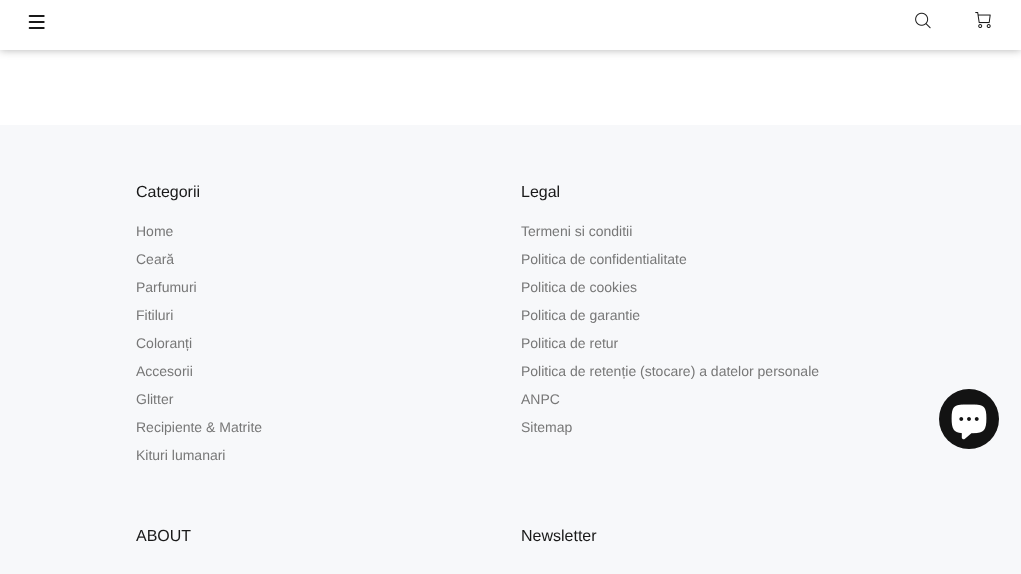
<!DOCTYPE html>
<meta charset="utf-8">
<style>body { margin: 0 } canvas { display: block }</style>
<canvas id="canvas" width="1021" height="574"></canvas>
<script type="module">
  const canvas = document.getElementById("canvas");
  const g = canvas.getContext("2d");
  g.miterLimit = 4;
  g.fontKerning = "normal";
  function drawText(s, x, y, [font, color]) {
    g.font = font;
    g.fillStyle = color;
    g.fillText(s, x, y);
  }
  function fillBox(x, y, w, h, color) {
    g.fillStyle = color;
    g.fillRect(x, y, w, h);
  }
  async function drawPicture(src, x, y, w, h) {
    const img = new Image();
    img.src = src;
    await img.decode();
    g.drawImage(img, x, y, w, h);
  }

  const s1 = ["16px Liberation Sans", "#191919"];
  const s2 = ["14px Liberation Sans", "#777777"];

  fillBox(0, 0, 1021, 574, "#FFFFFF");
  g.fillStyle = "rgba(0, 0, 0, 0.3)";
  g.filter = "blur(4px)";
  g.beginPath();
  g.rect(0, 0, 1021, 50);
  g.fill();
  g.filter = "none";
  fillBox(0, 0, 1021, 50, "#FFFFFF");
  await drawPicture("pic1.png", 28, 15, 17, 14);
  await drawPicture("pic2.png", 915, 12, 16, 17);
  await drawPicture("pic3.png", 975, 12, 16, 16);
  fillBox(0, 125, 1021, 449, "#F7F8FA");
  drawText("Categorii", 136, 197, s1);
  drawText("Home", 136, 236, s2);
  drawText("Ceară", 136, 264, s2);
  drawText("Parfumuri", 136, 292, s2);
  drawText("Fitiluri", 136, 320, s2);
  drawText("Coloranți", 136, 348, s2);
  drawText("Accesorii", 136, 376, s2);
  drawText("Glitter", 136, 404, s2);
  drawText("Recipiente & Matrite", 136, 432, s2);
  drawText("Kituri lumanari", 136, 460, s2);
  drawText("Legal", 521, 197, s1);
  drawText("Termeni si conditii", 521, 236, s2);
  drawText("Politica de confidentialitate", 521, 264, s2);
  drawText("Politica de cookies", 521, 292, s2);
  drawText("Politica de garantie", 521, 320, s2);
  drawText("Politica de retur", 521, 348, s2);
  drawText("Politica de retenție (stocare) a datelor personale", 521, 376, s2);
  drawText("ANPC", 521, 404, s2);
  drawText("Sitemap", 521, 432, s2);
  drawText("ABOUT", 136, 541, s1);
  drawText("Newsletter", 521, 541, s1);
  g.fillStyle = "#131313";
  g.beginPath();
  g.arc(969, 419, 30, 0, Math.PI * 2);
  g.fill();
  await drawPicture("pic4.png", 951, 404, 36, 36);
</script>
